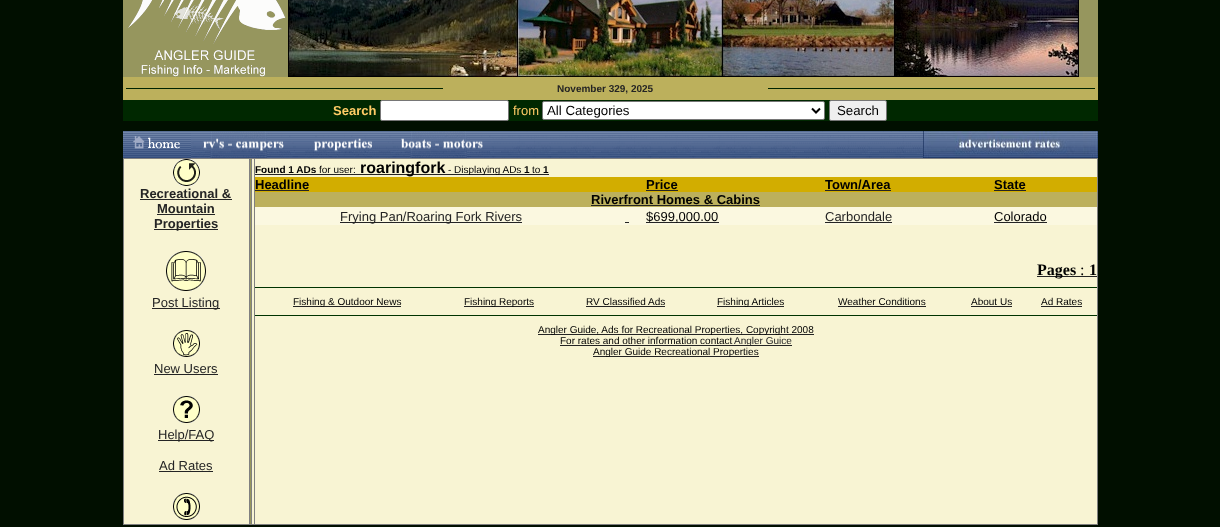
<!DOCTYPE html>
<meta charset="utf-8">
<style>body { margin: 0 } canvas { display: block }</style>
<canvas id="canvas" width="1220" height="527"></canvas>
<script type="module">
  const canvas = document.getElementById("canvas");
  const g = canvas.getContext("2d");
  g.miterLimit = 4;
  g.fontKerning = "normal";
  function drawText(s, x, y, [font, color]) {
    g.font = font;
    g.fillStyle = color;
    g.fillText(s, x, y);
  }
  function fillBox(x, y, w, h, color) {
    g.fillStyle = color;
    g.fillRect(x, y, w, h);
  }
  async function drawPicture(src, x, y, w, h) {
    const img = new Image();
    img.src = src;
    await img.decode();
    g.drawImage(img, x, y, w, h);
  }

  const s1 = ["bold 10px Liberation Sans", "#242424"];
  const s2 = ["bold 13px Liberation Sans", "#FFCC66"];
  const s3 = ["13px Liberation Sans", "#FFCC66"];
  const s4 = ["13.25px Liberation Sans", "#000000"];
  const s5 = ["bold 13px Liberation Sans", "#242424"];
  const s6 = ["13px Liberation Sans", "#242424"];
  const s7 = ["bold 10px Liberation Sans", "#000000"];
  const s8 = ["10px Liberation Sans", "#000000"];
  const s9 = ["bold 16px Liberation Sans", "#000000"];
  const s10 = ["bold 13px Liberation Sans", "#000000"];
  const s11 = ["13px Liberation Sans", "#000000"];
  const s12 = ["bold 16px Liberation Serif", "#000000"];
  const s13 = ["16px Liberation Serif", "#000000"];
  const s14 = ["10px Liberation Sans", "#242424"];

  fillBox(0, 0, 1220, 527, "#010F00");
  fillBox(123, 0, 975, 77, "#96965E");
  await drawPicture("pic1.png", 128, 0, 158, 77);
  await drawPicture("pic2.png", 288, 0, 791, 77);
  fillBox(123, 77, 975, 23, "#BCB05C");
  fillBox(126, 88, 317, 1, "#002400");
  drawText("November 329, 2025", 557, 92, s1);
  fillBox(768, 88, 327, 1, "#002400");
  fillBox(123, 100, 975, 21, "#002800");
  drawText("Search", 333, 115, s2);
  g.fillStyle = "#FFFFFF";
  g.beginPath();
  g.roundRect(380.5, 100.5, 128, 20, 1.5);
  g.fill();
  g.strokeStyle = "#767676";
  g.stroke();
  drawText("from", 513, 115, s3);
  g.fillStyle = "#FFFFFF";
  g.beginPath();
  g.roundRect(542.5, 101.5, 282, 18, 1.5);
  g.fill();
  g.stroke();
  g.beginPath();
  g.moveTo(812, 108.5);
  g.lineTo(816, 112.5);
  g.lineTo(820, 108.5);
  g.strokeStyle = "#000000";
  g.lineWidth = 2;
  g.stroke();
  drawText("All Categories", 547, 115, s4);
  g.fillStyle = "#EFEFEF";
  g.beginPath();
  g.roundRect(829.5, 100.5, 57, 20, 1.5);
  g.fill();
  g.strokeStyle = "#767676";
  g.lineWidth = 1;
  g.stroke();
  drawText("Search", 837, 115, s4);
  await drawPicture("pic3.png", 123, 131, 68, 27);
  await drawPicture("pic4.png", 191, 131, 100, 27);
  await drawPicture("pic5.png", 291, 131, 100, 27);
  await drawPicture("pic6.png", 391, 131, 100, 27);
  await drawPicture("pic7.png", 491, 131, 100, 27);
  await drawPicture("pic8.png", 591, 131, 100, 27);
  await drawPicture("pic9.png", 691, 131, 100, 27);
  await drawPicture("pic10.png", 791, 131, 132, 27);
  await drawPicture("pic11.png", 923, 131, 175, 27);
  fillBox(124, 159, 973, 365, "#F8F4D3");
  fillBox(123, 158, 975, 1, "#808080");
  fillBox(1097, 158, 1, 367, "#808080");
  fillBox(250, 159, 1, 366, "#96965E");
  fillBox(123, 524, 975, 1, "#808080");
  fillBox(123, 158, 1, 367, "#808080");
  await drawPicture("pic12.png", 173, 159, 27, 27);
  drawText("Recreational &", 140, 198, s5);
  fillBox(140, 199, 92, 1, "#242424");
  drawText("Mountain", 157, 213, s5);
  fillBox(157, 214, 58, 1, "#242424");
  fillBox(154, 229, 64, 1, "#242424");
  drawText("Properties", 154, 228, s5);
  await drawPicture("pic13.png", 166, 251, 40, 40);
  fillBox(152, 308, 68, 1, "#242424");
  drawText("Post Listing", 152, 307, s6);
  await drawPicture("pic14.png", 173, 330, 27, 27);
  drawText("New Users", 154, 373, s6);
  fillBox(154, 374, 64, 1, "#242424");
  await drawPicture("pic15.png", 173, 396, 27, 27);
  fillBox(158, 440, 56, 1, "#242424");
  drawText("Help/FAQ", 158, 439, s6);
  drawText("Ad Rates", 159, 470, s6);
  fillBox(159, 471, 54, 1, "#242424");
  await drawPicture("pic16.png", 173, 493, 27, 27);
  fillBox(249, 158, 1, 367, "#808080");
  fillBox(251, 158, 1, 367, "#808080");
  fillBox(254, 158, 1, 367, "#808080");
  drawText("Found 1 ADs", 255, 173, s7);
  fillBox(255, 174, 294, 1, "#242424");
  drawText("for user:", 319, 173, s8);
  drawText("roaringfork", 360, 173, s9);
  drawText("- Displaying ADs", 448, 173, s8);
  drawText("1", 524, 173, s7);
  drawText("to", 532, 173, s8);
  drawText("1", 543, 173, s7);
  fillBox(255, 177, 842, 15, "#D2AD00");
  drawText("Headline", 255, 189, s10);
  fillBox(255, 190, 54, 1, "#242424");
  drawText("Price", 646, 189, s10);
  fillBox(646, 190, 32, 1, "#242424");
  drawText("Town/Area", 825, 189, s10);
  fillBox(825, 190, 66, 1, "#242424");
  drawText("State", 994, 189, s10);
  fillBox(994, 190, 32, 1, "#242424");
  fillBox(255, 192, 842, 15, "#BCB05C");
  drawText("Riverfront Homes & Cabins", 591, 204, s10);
  fillBox(591, 205, 169, 1, "#242424");
  fillBox(255, 207, 842, 18, "#FBF8E0");
  fillBox(340, 222, 182, 1, "#242424");
  drawText("Frying Pan/Roaring Fork Rivers", 340, 221, s6);
  fillBox(646, 222, 73, 1, "#242424");
  drawText("$699,000.00", 646, 221, s11);
  drawText("Carbondale", 825, 221, s6);
  fillBox(825, 222, 67, 1, "#242424");
  drawText("Colorado", 994, 221, s11);
  fillBox(994, 222, 53, 1, "#242424");
  fillBox(625, 222, 4, 1, "#242424");
  fillBox(1037, 276, 60, 1, "#242424");
  drawText("Pages", 1037, 275, s12);
  drawText(":", 1080, 275, s13);
  drawText("1", 1089, 275, s12);
  fillBox(255, 287, 842, 1, "#003300");
  fillBox(293, 306, 108, 1, "#242424");
  drawText("Fishing & Outdoor News", 293, 305, s8);
  fillBox(464, 306, 70, 1, "#242424");
  drawText("Fishing Reports", 464, 305, s8);
  drawText("RV Classified Ads", 586, 305, s8);
  fillBox(586, 306, 79, 1, "#242424");
  fillBox(717, 306, 67, 1, "#242424");
  drawText("Fishing Articles", 717, 305, s8);
  drawText("Weather Conditions", 838, 305, s8);
  fillBox(838, 306, 88, 1, "#242424");
  drawText("About Us", 971, 305, s8);
  fillBox(971, 306, 41, 1, "#242424");
  drawText("Ad Rates", 1041, 305, s8);
  fillBox(1041, 306, 41, 1, "#242424");
  fillBox(255, 315, 842, 1, "#003300");
  fillBox(538, 334, 276, 1, "#242424");
  drawText("Angler Guide, Ads for Recreational Properties, Copyright 2008", 538, 333, s8);
  drawText("For rates and other information contact", 560, 344, s8);
  fillBox(560, 345, 232, 1, "#242424");
  drawText("Angler Guice", 734, 344, s14);
  fillBox(593, 356, 166, 1, "#242424");
  drawText("Angler Guide Recreational Properties", 593, 355, s8);
</script>
